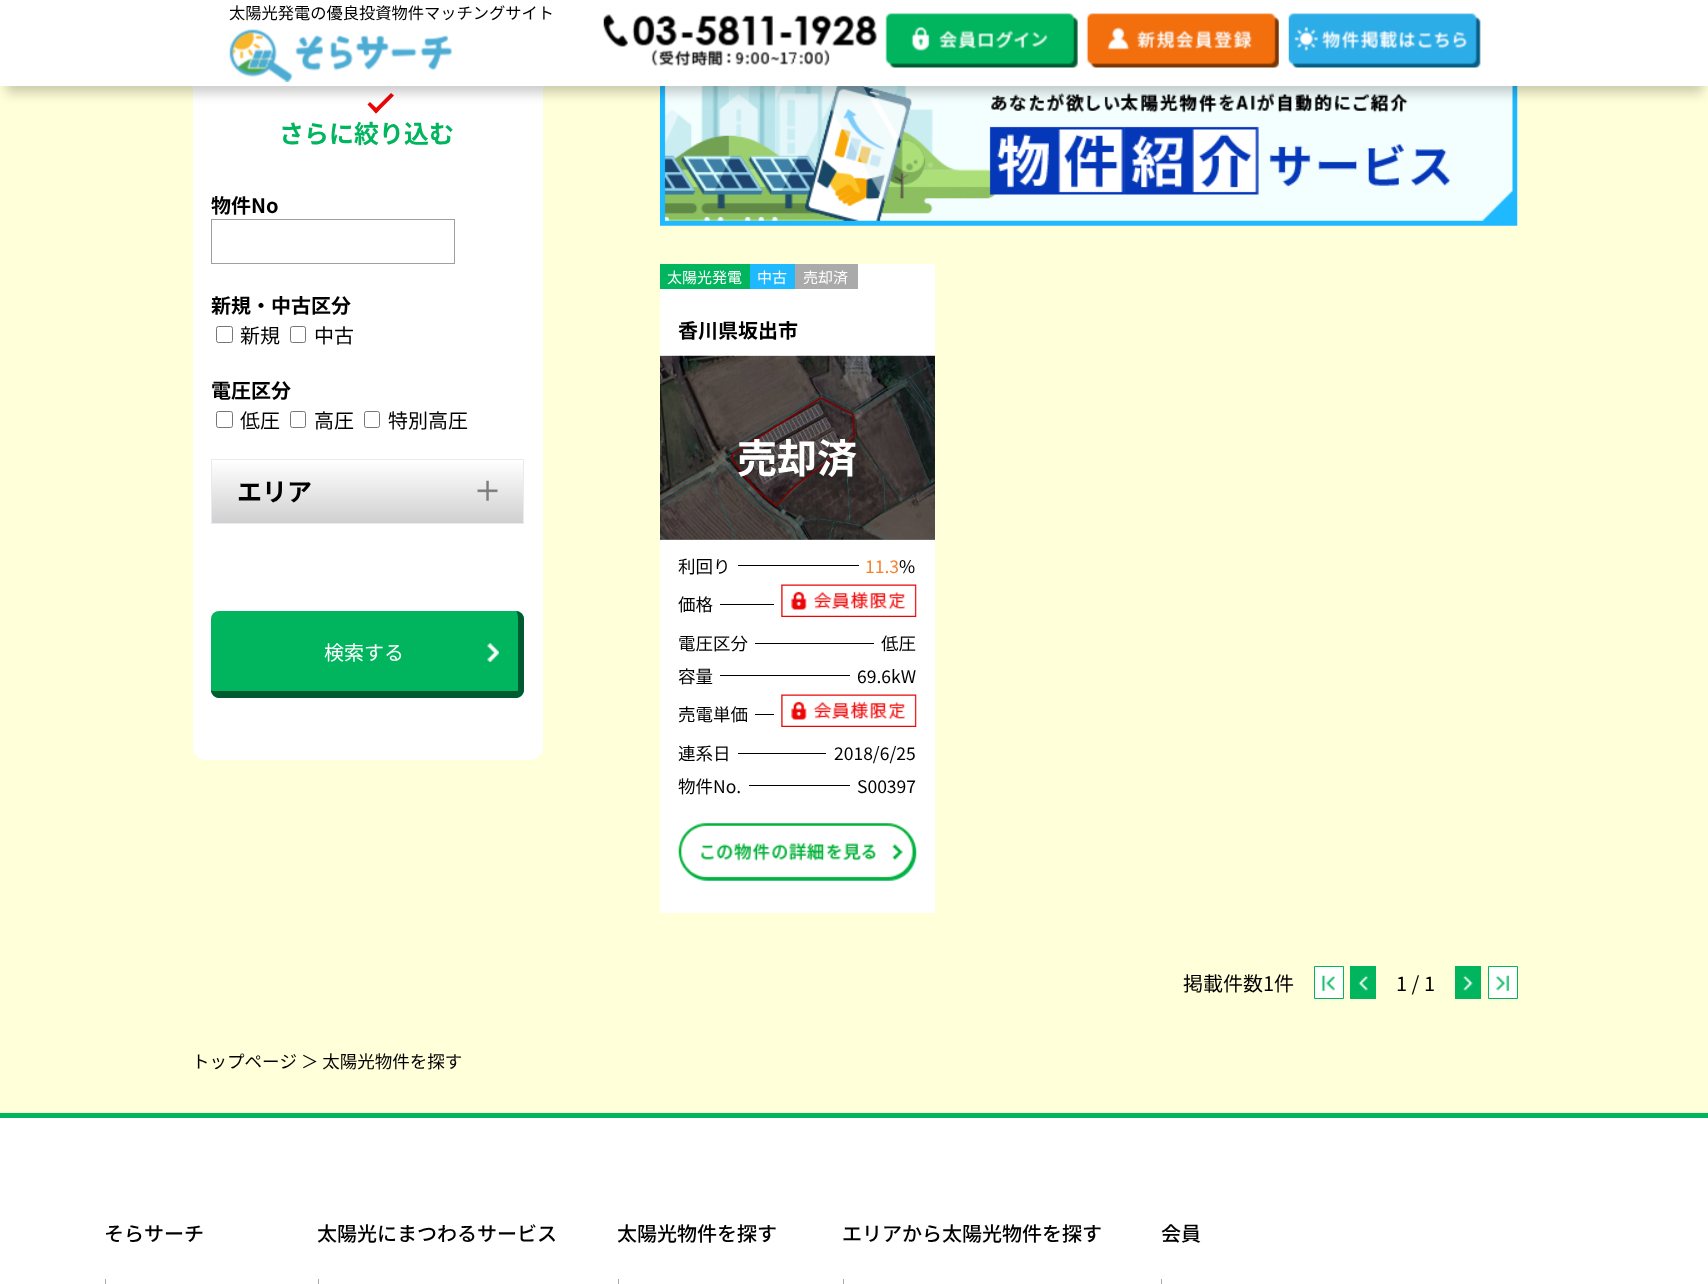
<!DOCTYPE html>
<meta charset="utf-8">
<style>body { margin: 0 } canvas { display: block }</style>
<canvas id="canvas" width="1708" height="1284"></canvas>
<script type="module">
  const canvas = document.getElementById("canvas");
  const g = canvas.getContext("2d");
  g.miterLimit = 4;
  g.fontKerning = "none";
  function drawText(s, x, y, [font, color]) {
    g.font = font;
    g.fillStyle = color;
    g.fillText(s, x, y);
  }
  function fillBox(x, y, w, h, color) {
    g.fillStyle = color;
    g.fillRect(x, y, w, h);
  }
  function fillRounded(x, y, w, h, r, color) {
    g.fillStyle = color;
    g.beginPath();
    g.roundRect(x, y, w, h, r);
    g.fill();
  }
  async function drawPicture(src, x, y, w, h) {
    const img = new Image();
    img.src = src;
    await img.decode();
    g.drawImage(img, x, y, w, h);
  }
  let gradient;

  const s1 = ["16.25px Noto Sans JP", "#000000"];
  const s2 = ["bold 25px Noto Sans JP", "#00B55E"];
  const s3 = ["bold 20px Noto Sans JP", "#000000"];
  const s4 = ["20px Noto Sans JP", "#000000"];
  const s5 = ["bold 25px Noto Sans JP", "#000000"];
  const s6 = ["20px Noto Sans JP", "#FFFFFF"];
  const s7 = ["15px Noto Sans JP", "#FFFFFF"];
  const s8 = ["bold 40px Noto Sans JP", "#FFFFFF"];
  const s9 = ["17.5px Noto Sans JP", "#000000"];
  const s10 = ["17.5px Noto Sans JP", "#F5822E"];
  const s11 = ["500 20px Noto Sans JP", "#000000"];

  fillBox(0, 0, 1708, 1284, "#FFFFFF");
  fillBox(0, 86, 1708, 1027, "#FFFFD9");
  fillRounded(193, 64, 350, 696, 13, "#FFFFFF");
  g.fillStyle = "#EB0606";
  g.beginPath();
  g.moveTo(373.5, 110.5);
  g.lineTo(391, 93);
  g.lineTo(394, 95.5);
  g.lineTo(376, 113.5);
  g.closePath();
  g.fill();
  g.beginPath();
  g.moveTo(367.5, 104.5);
  g.lineTo(370, 102);
  g.lineTo(379, 110.5);
  g.lineTo(376, 113.5);
  g.closePath();
  g.fill();
  await drawPicture("pic8.png", 660, 86, 858, 140);
  g.fillStyle = "rgba(0, 0, 0, 0.2)";
  g.filter = "blur(6px)";
  g.beginPath();
  g.rect(6, 19, 1697, 74);
  g.fill();
  g.filter = "none";
  fillBox(0, 9, 1708, 77, "#FFFFFF");
  drawText("太陽光発電の優良投資物件マッチングサイト", 229, 19, s1);
  await drawPicture("pic1.png", 229, 29, 223, 53);
  await drawPicture("pic2.png", 603, 14, 274, 52);
  await drawPicture("pic3.png", 885, 13, 193, 55);
  await drawPicture("pic4.png", 1086, 13, 193, 55);
  await drawPicture("pic5.png", 1288, 13, 193, 55);
  drawText("さらに絞り込む", 279, 143, s2);
  drawText("物件No", 211, 213, s3);
  g.strokeStyle = "#A09F9F";
  g.strokeRect(211.5, 219.5, 243, 44);
  drawText("新規・中古区分", 211, 313, s3);
  g.beginPath();
  g.roundRect(216.5, 326.5, 16, 16, 2);
  g.strokeStyle = "#767676";
  g.stroke();
  drawText("新規", 240, 343, s4);
  g.beginPath();
  g.roundRect(290.5, 326.5, 15, 16, 2);
  g.stroke();
  drawText("中古", 314, 343, s4);
  drawText("電圧区分", 211, 398, s3);
  g.beginPath();
  g.roundRect(216.5, 411.5, 16, 16, 2);
  g.stroke();
  drawText("低圧", 240, 428, s4);
  g.beginPath();
  g.roundRect(290.5, 411.5, 15, 16, 2);
  g.stroke();
  drawText("高圧", 314, 428, s4);
  g.beginPath();
  g.roundRect(364.5, 411.5, 15, 16, 2);
  g.stroke();
  drawText("特別高圧", 388, 428, s4);
  gradient = g.createLinearGradient(368, 460, 368, 523);
  gradient.addColorStop(0, "#FFFFFF");
  gradient.addColorStop(1, "#D0D0D0");
  g.fillStyle = gradient;
  g.fillRect(212, 463, 311, 60);
  g.strokeStyle = "#E6ECF0";
  g.strokeRect(211.5, 459.5, 312, 64);
  drawText("エリア", 237, 501, s5);
  await drawPicture("pic6.png", 477, 480, 21, 21);
  fillRounded(211, 611, 313, 87, 8, "#00B55E");
  g.fillStyle = "#005C30";
  g.beginPath();
  g.moveTo(219, 611);
  g.lineTo(516, 611);
  g.bezierCurveTo(520, 611, 524, 615, 524, 619);
  g.lineTo(524, 690);
  g.bezierCurveTo(524, 694, 520, 698, 516, 698);
  g.lineTo(219, 698);
  g.bezierCurveTo(215, 698, 211, 694, 211, 690);
  g.lineTo(211, 619);
  g.bezierCurveTo(211, 615, 215, 611, 219, 611);
  g.closePath();
  g.moveTo(219, 611);
  g.lineTo(516, 611);
  g.bezierCurveTo(517, 611, 518, 615, 518, 619);
  g.lineTo(518, 690);
  g.bezierCurveTo(518, 691, 517, 691, 516, 691);
  g.lineTo(219, 691);
  g.bezierCurveTo(215, 691, 211, 691, 211, 690);
  g.lineTo(211, 619);
  g.bezierCurveTo(211, 615, 215, 611, 219, 611);
  g.closePath();
  g.fill("evenodd");
  drawText("検索する", 324, 660, s6);
  await drawPicture("pic7.png", 487, 643, 12, 19);
  fillBox(660, 264, 275, 649, "#FFFFFF");
  fillBox(660, 539, 275, 1, "#808080");
  fillBox(660, 264, 90, 25, "#00B55E");
  drawText("太陽光発電", 667, 283, s7);
  fillBox(750, 264, 45, 25, "#1EB9FF");
  drawText("中古", 757, 283, s7);
  fillBox(795, 264, 63, 25, "#AAAAAA");
  drawText("売却済", 803, 283, s7);
  drawText("香川県坂出市", 678, 338, s3);
  await drawPicture("pic9.png", 660, 355, 275, 185);
  drawText("売却済", 737, 473, s8);
  drawText("利回り", 678, 573, s9);
  fillBox(738, 565, 121, 1, "#000000");
  drawText("11.3", 865, 573, s10);
  drawText("%", 899, 573, s9);
  drawText("価格", 678, 611, s9);
  fillBox(720, 604, 54, 1, "#000000");
  await drawPicture("pic10.png", 781, 584, 136, 33);
  drawText("電圧区分", 678, 650, s9);
  fillBox(755, 643, 119, 1, "#000000");
  drawText("低圧", 881, 650, s9);
  drawText("容量", 678, 683, s9);
  fillBox(720, 675, 130, 1, "#000000");
  drawText("69.6kW", 857, 683, s9);
  drawText("売電単価", 678, 721, s9);
  fillBox(755, 714, 19, 1, "#000000");
  await drawPicture("pic10.png", 781, 694, 136, 33);
  drawText("連系日", 678, 760, s9);
  fillBox(738, 753, 88, 1, "#000000");
  drawText("2018/6/25", 834, 760, s9);
  drawText("物件No.", 678, 793, s9);
  fillBox(749, 785, 101, 1, "#000000");
  drawText("S00397", 857, 793, s9);
  await drawPicture("pic11.png", 678, 823, 239, 58);
  drawText("掲載件数1件", 1183, 991, s4);
  g.fillStyle = "#FFFFFF";
  g.beginPath();
  g.rect(1314.5, 966.5, 29, 32);
  g.fill();
  g.strokeStyle = "#00B55E";
  g.stroke();
  await drawPicture("pic12.png", 1322, 975, 13, 16);
  fillBox(1350, 966, 26, 33, "#00B55E");
  await drawPicture("pic13.png", 1358, 975, 10, 16);
  drawText("1 / 1", 1396, 991, s4);
  fillBox(1455, 966, 26, 33, "#00B55E");
  await drawPicture("pic14.png", 1463, 975, 10, 16);
  g.fillStyle = "#FFFFFF";
  g.beginPath();
  g.rect(1488.5, 966.5, 29, 32);
  g.fill();
  g.stroke();
  await drawPicture("pic15.png", 1496, 975, 13, 16);
  drawText("トップページ ＞ 太陽光物件を探す", 192, 1068, s9);
  fillBox(0, 1113, 1708, 5, "#00B55E");
  drawText("そらサーチ", 104, 1241, s11);
  fillBox(105, 1279, 1, 5, "#AAAAAA");
  drawText("太陽光にまつわるサービス", 317, 1241, s11);
  fillBox(318, 1279, 1, 5, "#AAAAAA");
  drawText("太陽光物件を探す", 617, 1241, s11);
  fillBox(618, 1279, 1, 5, "#AAAAAA");
  drawText("エリアから太陽光物件を探す", 842, 1241, s11);
  fillBox(843, 1279, 1, 5, "#AAAAAA");
  drawText("会員", 1161, 1241, s11);
  fillBox(1161, 1279, 1, 5, "#AAAAAA");
</script>
